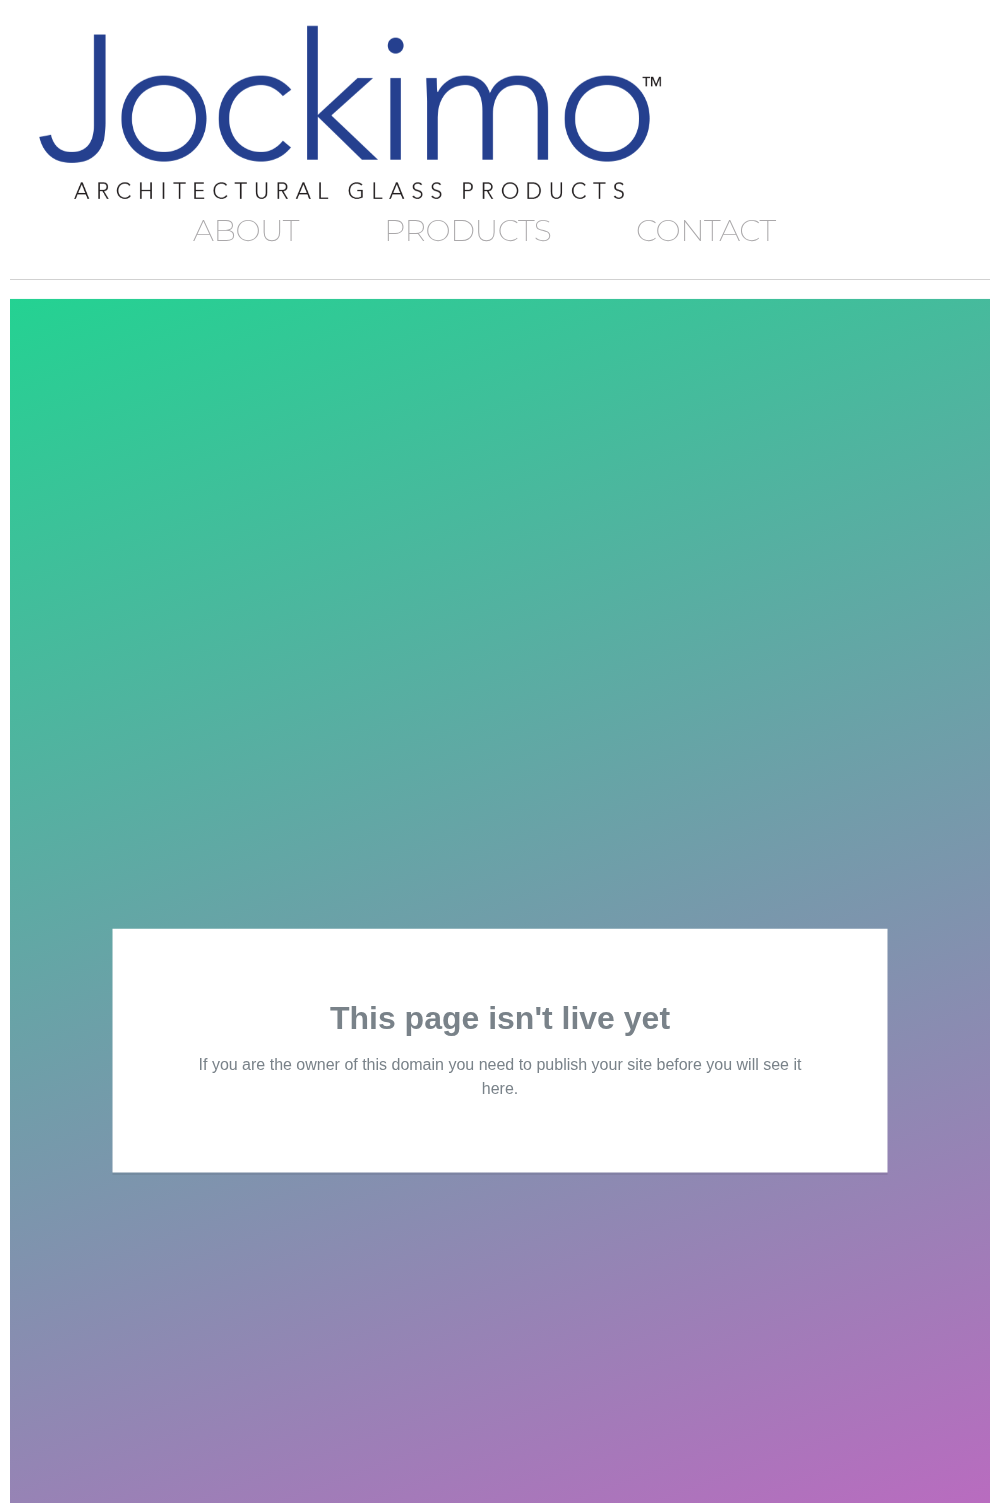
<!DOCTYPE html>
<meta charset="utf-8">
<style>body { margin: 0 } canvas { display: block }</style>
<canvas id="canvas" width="1000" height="1503"></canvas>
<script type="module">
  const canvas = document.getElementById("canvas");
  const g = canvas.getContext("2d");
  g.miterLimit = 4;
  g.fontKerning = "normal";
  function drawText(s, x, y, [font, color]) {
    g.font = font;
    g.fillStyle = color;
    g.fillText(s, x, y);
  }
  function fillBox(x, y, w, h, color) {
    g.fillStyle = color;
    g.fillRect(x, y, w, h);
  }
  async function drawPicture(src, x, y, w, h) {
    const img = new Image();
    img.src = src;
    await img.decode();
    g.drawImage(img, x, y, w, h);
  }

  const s1 = ["200 30px Montserrat", "#AAA8AA"];

  fillBox(0, 0, 1000, 1503, "#FFFFFF");
  await drawPicture("pic1.png", 39, 25, 623, 174);
  g.letterSpacing = "-0.5px";
  drawText("ABOUT", 193, 241, s1);
  drawText("PRODUCTS", 384, 241, s1);
  drawText("CONTACT", 636, 241, s1);
  fillBox(10, 279, 980, 1, "#D1D1D1");
  await drawPicture("pic2.png", 10, 298, 980, 1205);
</script>
